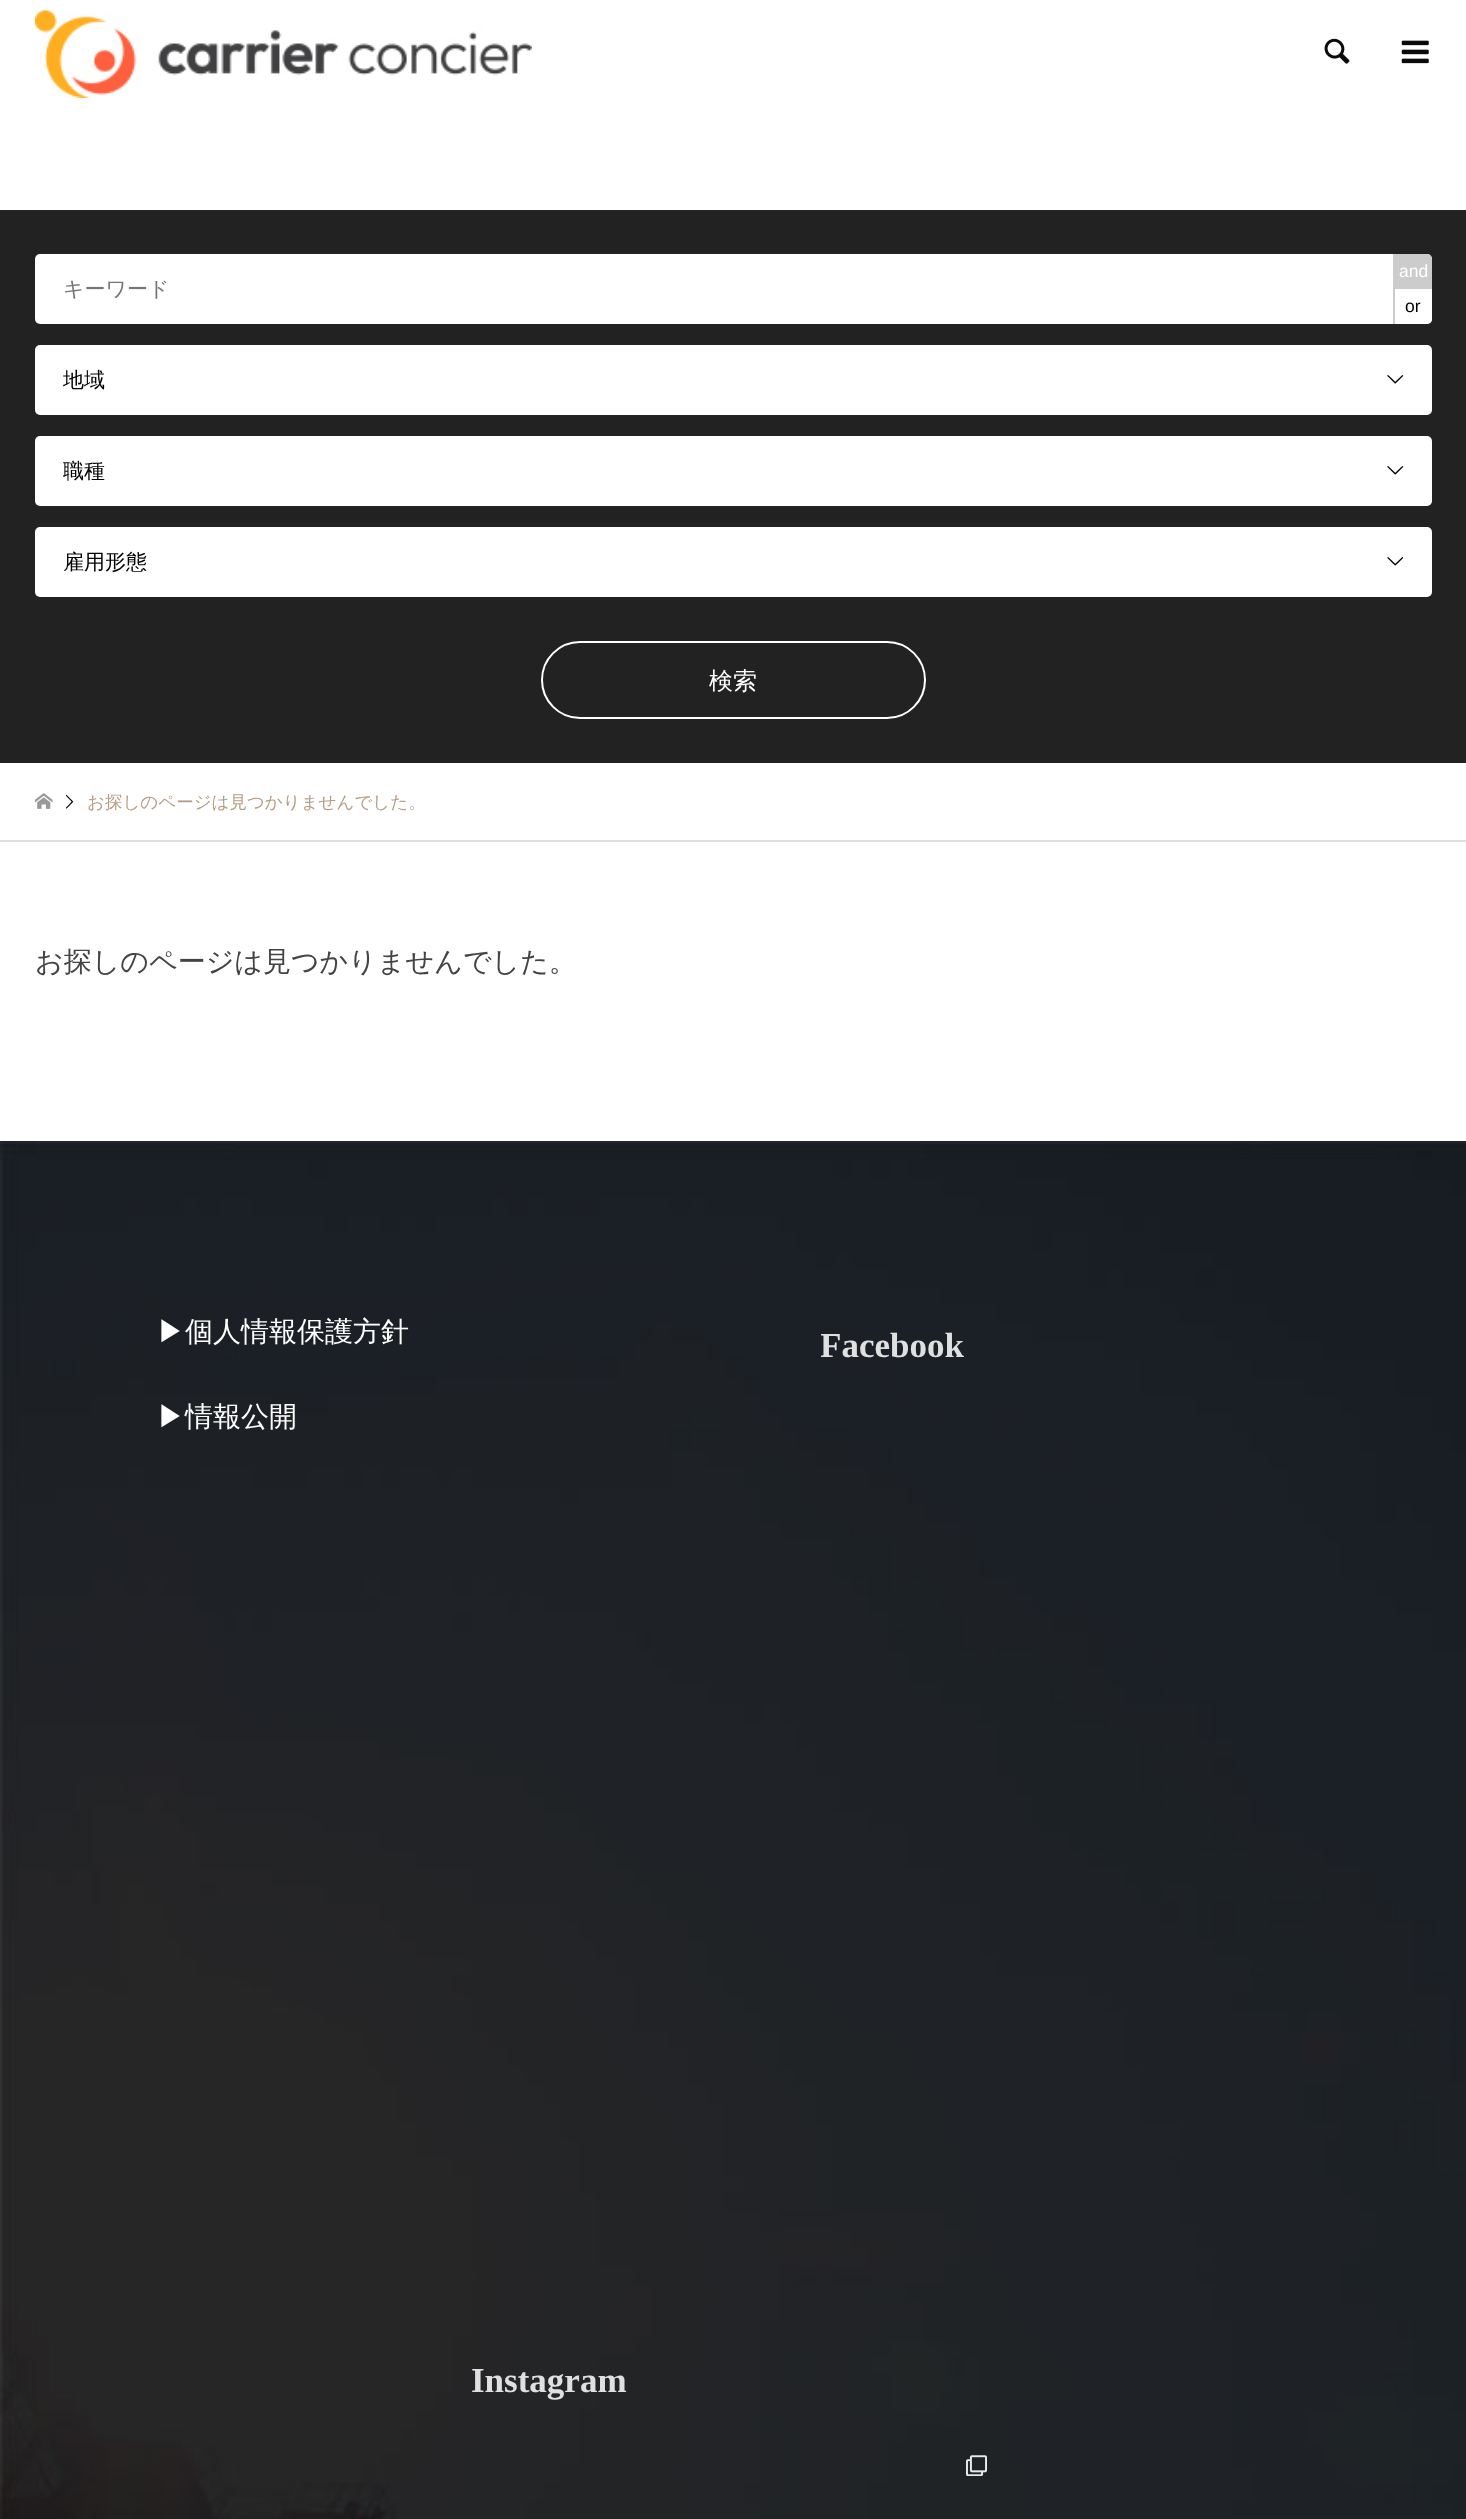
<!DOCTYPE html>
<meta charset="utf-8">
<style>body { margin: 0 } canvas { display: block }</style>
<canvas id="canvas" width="1466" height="2519"></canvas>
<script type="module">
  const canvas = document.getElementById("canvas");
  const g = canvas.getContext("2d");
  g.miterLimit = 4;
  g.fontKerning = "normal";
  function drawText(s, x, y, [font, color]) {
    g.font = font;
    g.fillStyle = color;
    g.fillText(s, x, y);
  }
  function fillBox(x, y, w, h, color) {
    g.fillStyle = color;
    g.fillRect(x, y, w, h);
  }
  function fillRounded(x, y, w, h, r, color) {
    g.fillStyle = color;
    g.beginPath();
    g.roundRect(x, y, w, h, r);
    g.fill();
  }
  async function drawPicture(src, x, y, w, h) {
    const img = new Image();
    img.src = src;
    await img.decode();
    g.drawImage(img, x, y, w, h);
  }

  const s1 = ["500 21px WenQuanYi Zen Hei", "#757575"];
  const s2 = ["17.5px Liberation Sans", "#FFFFFF"];
  const s3 = ["17.5px Liberation Sans", "#000000"];
  const s4 = ["500 21px WenQuanYi Zen Hei", "#000000"];
  const s5 = ["500 24px WenQuanYi Zen Hei", "#FFFFFF"];
  const s6 = ["500 17.5px WenQuanYi Zen Hei", "#B69E84"];
  const s7 = ["500 28px WenQuanYi Zen Hei", "#444444"];
  const s8 = ["500 28px WenQuanYi Zen Hei", "#FFFFFF"];
  const s9 = ["bold 35px Liberation Serif", "#E0E0E0"];

  fillBox(0, 0, 1466, 2519, "#FFFFFF");
  await drawPicture("pic1.png", 35, 10, 497, 88);
  await drawPicture("pic2.png", 1324, 38, 26, 26);
  await drawPicture("pic3.png", 1401, 40, 28, 24);
  fillBox(0, 210, 1466, 553, "#222222");
  fillRounded(35, 254, 1397, 70, 5, "#FFFFFF");
  drawText("キーワード", 63, 296, s1);
  g.fillStyle = "#CCCCCC";
  g.beginPath();
  g.roundRect(1393, 254, 39, 35, [0, 5, 0, 0]);
  g.fill();
  drawText("and", 1399, 277, s2);
  g.beginPath();
  g.roundRect(1393, 289, 39, 35, [0, 0, 5, 0]);
  g.fill();
  fillBox(1393, 289, 2, 35, "#CCCCCC");
  drawText("or", 1405, 312, s3);
  fillRounded(35, 345, 1397, 70, 5, "#FFFFFF");
  drawText("地域", 63, 387, s4);
  await drawPicture("pic4.png", 1387, 375, 17, 9);
  fillRounded(35, 436, 1397, 70, 5, "#FFFFFF");
  drawText("職種", 63, 478, s4);
  await drawPicture("pic4.png", 1387, 466, 17, 9);
  fillRounded(35, 527, 1397, 70, 5, "#FFFFFF");
  drawText("雇用形態", 63, 569, s4);
  await drawPicture("pic4.png", 1387, 557, 17, 9);
  g.beginPath();
  g.roundRect(542, 642, 383, 76, 38);
  g.strokeStyle = "#FFFFFF";
  g.lineWidth = 2;
  g.stroke();
  drawText("検索", 709, 689, s5);
  fillBox(0, 840, 1466, 2, "#DDDDDD");
  await drawPicture("pic5.png", 35, 793, 18, 16);
  await drawPicture("pic6.png", 65, 795, 9, 14);
  drawText("お探しのページは見つかりませんでした。", 87, 808, s6);
  drawText("お探しのページは見つかりませんでした。", 35, 971, s7);
  await drawPicture("pic7.png", 0, 1141, 1466, 1378);
  drawText("▶︎個人情報保護方針", 157, 1341, s8);
  drawText("▶︎情報公開", 157, 1426, s8);
  g.save();
  g.beginPath();
  g.rect(821, 1299, 525, 983);
  g.clip();
  drawText("Facebook", 820, 1357, s9);
  g.restore();
  drawText("Instagram", 471, 2392, s9);
  await drawPicture("pic8.png", 966, 2455, 21, 21);
</script>
